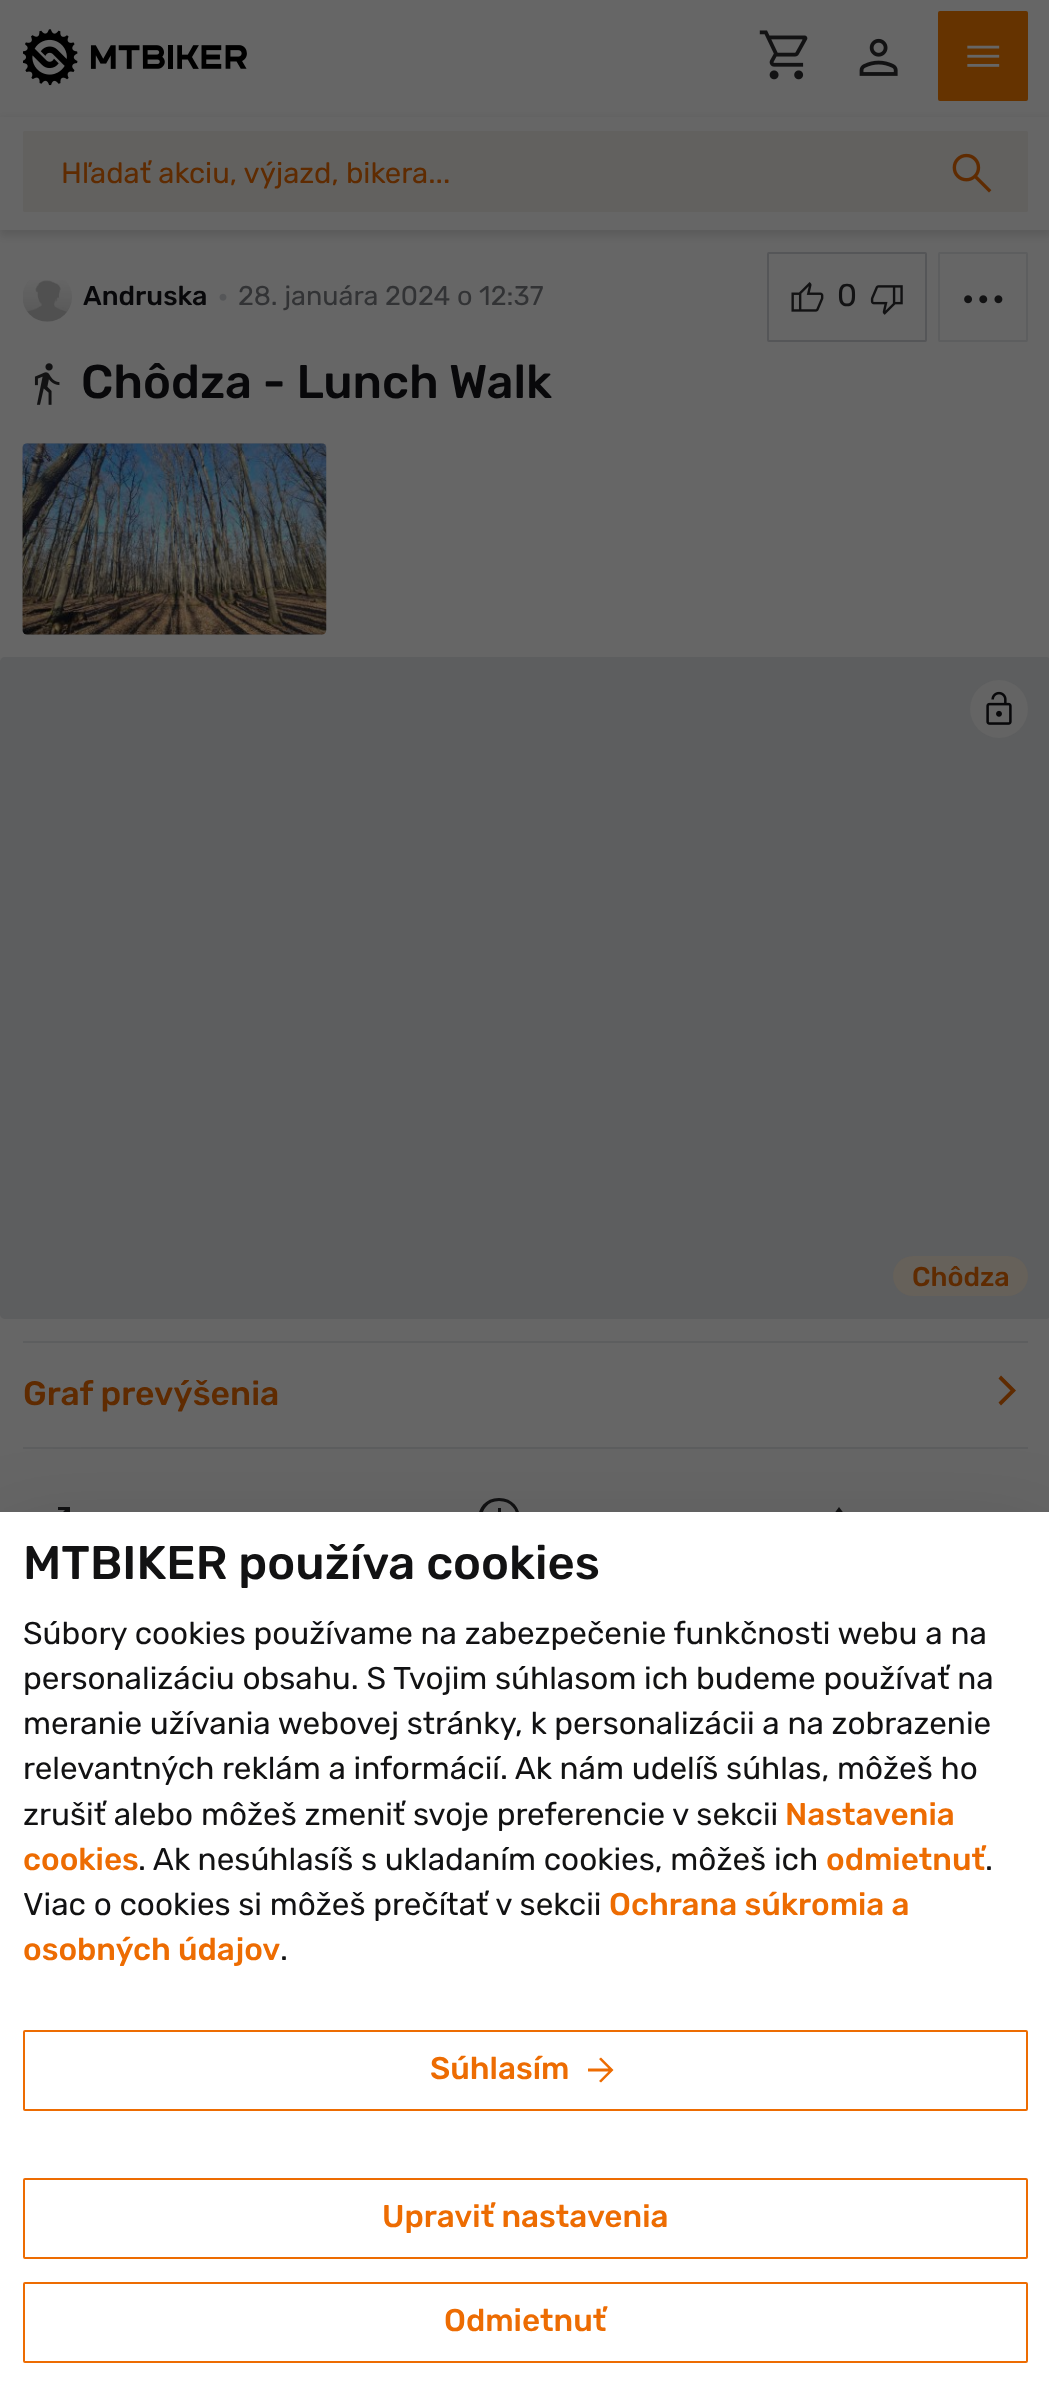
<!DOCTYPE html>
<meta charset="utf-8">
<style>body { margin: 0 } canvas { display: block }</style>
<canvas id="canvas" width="1049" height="2395"></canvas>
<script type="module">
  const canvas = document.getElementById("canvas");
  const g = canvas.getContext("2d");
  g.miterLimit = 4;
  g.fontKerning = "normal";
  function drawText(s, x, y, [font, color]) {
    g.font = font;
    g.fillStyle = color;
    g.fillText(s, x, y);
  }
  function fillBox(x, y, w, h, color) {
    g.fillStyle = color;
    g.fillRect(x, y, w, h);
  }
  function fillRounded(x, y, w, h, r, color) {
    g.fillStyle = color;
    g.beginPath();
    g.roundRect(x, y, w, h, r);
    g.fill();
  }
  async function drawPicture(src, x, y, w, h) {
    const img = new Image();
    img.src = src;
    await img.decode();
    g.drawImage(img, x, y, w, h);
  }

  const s1 = ["29.25px Rubik", "#5F2B01"];
  const s2 = ["500 27px Rubik", "#08080A"];
  const s3 = ["31.5px Rubik", "#555658"];
  const s4 = ["27px Rubik", "#323335"];
  const s5 = ["31.5px Rubik", "#121213"];
  const s6 = ["500 47.25px Rubik", "#08080A"];
  const s7 = ["500 27px Rubik", "#5F2B01"];
  const s8 = ["500 33.75px Rubik", "#5F2B01"];
  const s9 = ["500 47.25px Rubik", "#121213"];
  const s10 = ["500 31.5px Rubik", "#ED6C02"];

  fillBox(0, 0, 1049, 2395, "#666666");
  await drawPicture("pic1.png", 23, 29, 224, 57);
  await drawPicture("pic2.png", 759, 30, 49, 50);
  await drawPicture("pic3.png", 859, 38, 39, 38);
  fillRounded(938, 11, 90, 90, 2, "#653300");
  await drawPicture("pic4.png", 967, 45, 33, 22);
  g.fillStyle = "rgba(0, 0, 0, 0.1)";
  g.filter = "blur(3.5px)";
  g.beginPath();
  g.rect(0, 119, 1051, 117);
  g.fill();
  g.filter = "none";
  fillBox(0, 117, 1049, 113, "#666666");
  fillRounded(23, 131, 1005, 81, 2, "#62615F");
  drawText("Hľadať akciu, výjazd, bikera...", 61, 183, s1);
  await drawPicture("pic5.png", 952, 153, 40, 40);
  await drawPicture("pic6.png", 23, 280, 49, 42);
  drawText("Andruska", 83, 305, s2);
  drawText("•", 217, 307, s3);
  drawText("28. januára 2024 o 12:37", 238, 305, s4);
  g.beginPath();
  g.roundRect(768, 253, 158, 88, 1);
  g.strokeStyle = "#555658";
  g.lineWidth = 2;
  g.stroke();
  await drawPicture("pic7.png", 791, 282, 33, 30);
  drawText("0", 837, 306, s5);
  await drawPicture("pic8.png", 870, 285, 33, 30);
  g.beginPath();
  g.roundRect(939, 253, 88, 88, 1);
  g.strokeStyle = "#5D5E5F";
  g.stroke();
  await drawPicture("pic9.png", 964, 295, 39, 9);
  await drawPicture("pic10.png", 34, 363, 26, 42);
  drawText("Chôdza - Lunch Walk", 81, 398, s6);
  fillRounded(23, 443, 303, 192, 5, "#5D5E5F");
  await drawPicture("pic11.png", 22, 443, 305, 192);
  fillRounded(0, 657, 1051, 662, 5, "#5D5E5F");
  g.fillStyle = "#646464";
  g.beginPath();
  g.arc(999, 709, 29, 0, Math.PI * 2);
  g.fill();
  await drawPicture("pic12.png", 986, 691, 26, 34);
  fillRounded(893, 1256, 135, 40, 20, "#66615A");
  drawText("Chôdza", 912, 1286, s7);
  fillBox(23, 1341, 1005, 2, "#5D5E5F");
  fillBox(23, 1447, 1005, 2, "#5D5E5F");
  drawText("Graf prevýšenia", 23, 1405, s8);
  g.beginPath();
  g.moveTo(1010.5, 1390.5);
  g.lineTo(998.5, 1378.5);
  g.lineTo(1001, 1375.5);
  g.lineTo(1016, 1390.5);
  g.lineTo(1001, 1405.5);
  g.lineTo(998.5, 1402.5);
  g.closePath();
  g.fill();
  g.fillStyle = "#121213";
  g.beginPath();
  g.moveTo(30, 1531);
  g.lineTo(28, 1529);
  g.lineTo(43, 1514);
  g.lineTo(52, 1523);
  g.lineTo(65, 1510);
  g.lineTo(58, 1510);
  g.lineTo(58, 1507);
  g.lineTo(70, 1507);
  g.lineTo(70, 1519);
  g.lineTo(67, 1519);
  g.lineTo(67, 1513);
  g.lineTo(52, 1527);
  g.lineTo(43, 1518);
  g.closePath();
  g.fill();
  g.beginPath();
  g.moveTo(507, 1529);
  g.lineTo(509, 1527);
  g.lineTo(501, 1518);
  g.lineTo(501, 1508);
  g.lineTo(498, 1508);
  g.lineTo(498, 1520);
  g.closePath();
  g.moveTo(499, 1540);
  g.bezierCurveTo(471, 1540, 471, 1498, 499, 1498);
  g.bezierCurveTo(527, 1498, 527, 1540, 499, 1540);
  g.closePath();
  g.moveTo(499, 1519);
  g.closePath();
  g.moveTo(499, 1537);
  g.bezierCurveTo(523, 1537, 523, 1501, 499, 1501);
  g.bezierCurveTo(476, 1501, 476, 1537, 499, 1537);
  g.closePath();
  g.fill();
  g.beginPath();
  g.moveTo(812, 1531);
  g.lineTo(823, 1516);
  g.lineTo(832, 1528);
  g.lineTo(850, 1528);
  g.lineTo(839, 1513);
  g.lineTo(833, 1521);
  g.lineTo(831, 1518);
  g.lineTo(839, 1507);
  g.lineTo(857, 1531);
  g.closePath();
  g.moveTo(838, 1528);
  g.lineTo(838, 1528);
  g.closePath();
  g.moveTo(819, 1528);
  g.lineTo(828, 1528);
  g.lineTo(823, 1522);
  g.closePath();
  g.moveTo(819, 1528);
  g.lineTo(828, 1528);
  g.closePath();
  g.fill();
  g.fillStyle = "rgba(0, 0, 0, 0.18)";
  g.filter = "blur(47px)";
  g.beginPath();
  g.rect(0, 1544, 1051, 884);
  g.fill();
  g.filter = "none";
  fillBox(0, 1512, 1049, 883, "#FFFFFF");
  drawText("MTBIKER používa co‍okies", 23, 1579, s9);
  drawText("Súbory cookies používame na zabezpečenie funkčnosti webu a na", 23, 1644, s5);
  drawText("personalizáciu obsahu. S Tvojim súhlasom ich budeme používať na", 23, 1689, s5);
  drawText("meranie užívania webovej stránky, k personalizácii a na zobrazenie", 23, 1734, s5);
  drawText("relevantných reklám a informácií. Ak nám udelíš súhlas, môžeš ho", 23, 1779, s5);
  drawText("zrušiť alebo môžeš zmeniť svoje preferencie v sekcii", 23, 1825, s5);
  drawText("Nastavenia", 785, 1825, s10);
  drawText("cookies", 23, 1870, s10);
  drawText(". Ak nesúhlasíš s ukladaním cookies, môžeš ich", 138, 1870, s5);
  drawText("odmietnuť", 826, 1870, s10);
  drawText(".", 985, 1870, s5);
  drawText("Viac o cookies si môžeš prečítať v sekcii", 23, 1915, s5);
  drawText("Ochrana súkromia a", 609, 1915, s10);
  drawText("osobných údajov", 23, 1960, s10);
  drawText(".", 280, 1960, s5);
  g.beginPath();
  g.roundRect(24, 2031, 1003, 79, 1);
  g.strokeStyle = "#ED6C02";
  g.stroke();
  drawText("Súhlasím", 430, 2079, s10);
  g.beginPath();
  g.moveTo(608.5, 2071.5);
  g.lineTo(588, 2071.5);
  g.lineTo(588, 2068.5);
  g.lineTo(608.5, 2068.5);
  g.lineTo(599, 2059);
  g.lineTo(601, 2057.5);
  g.lineTo(613.5, 2070);
  g.lineTo(601, 2082.5);
  g.lineTo(599, 2081);
  g.closePath();
  g.fill();
  g.beginPath();
  g.roundRect(24, 2179, 1003, 79, 1);
  g.stroke();
  drawText("Upraviť nastavenia", 382, 2227, s10);
  g.beginPath();
  g.roundRect(24, 2283, 1003, 79, 1);
  g.stroke();
  drawText("Odmietnuť", 444, 2331, s10);
</script>
